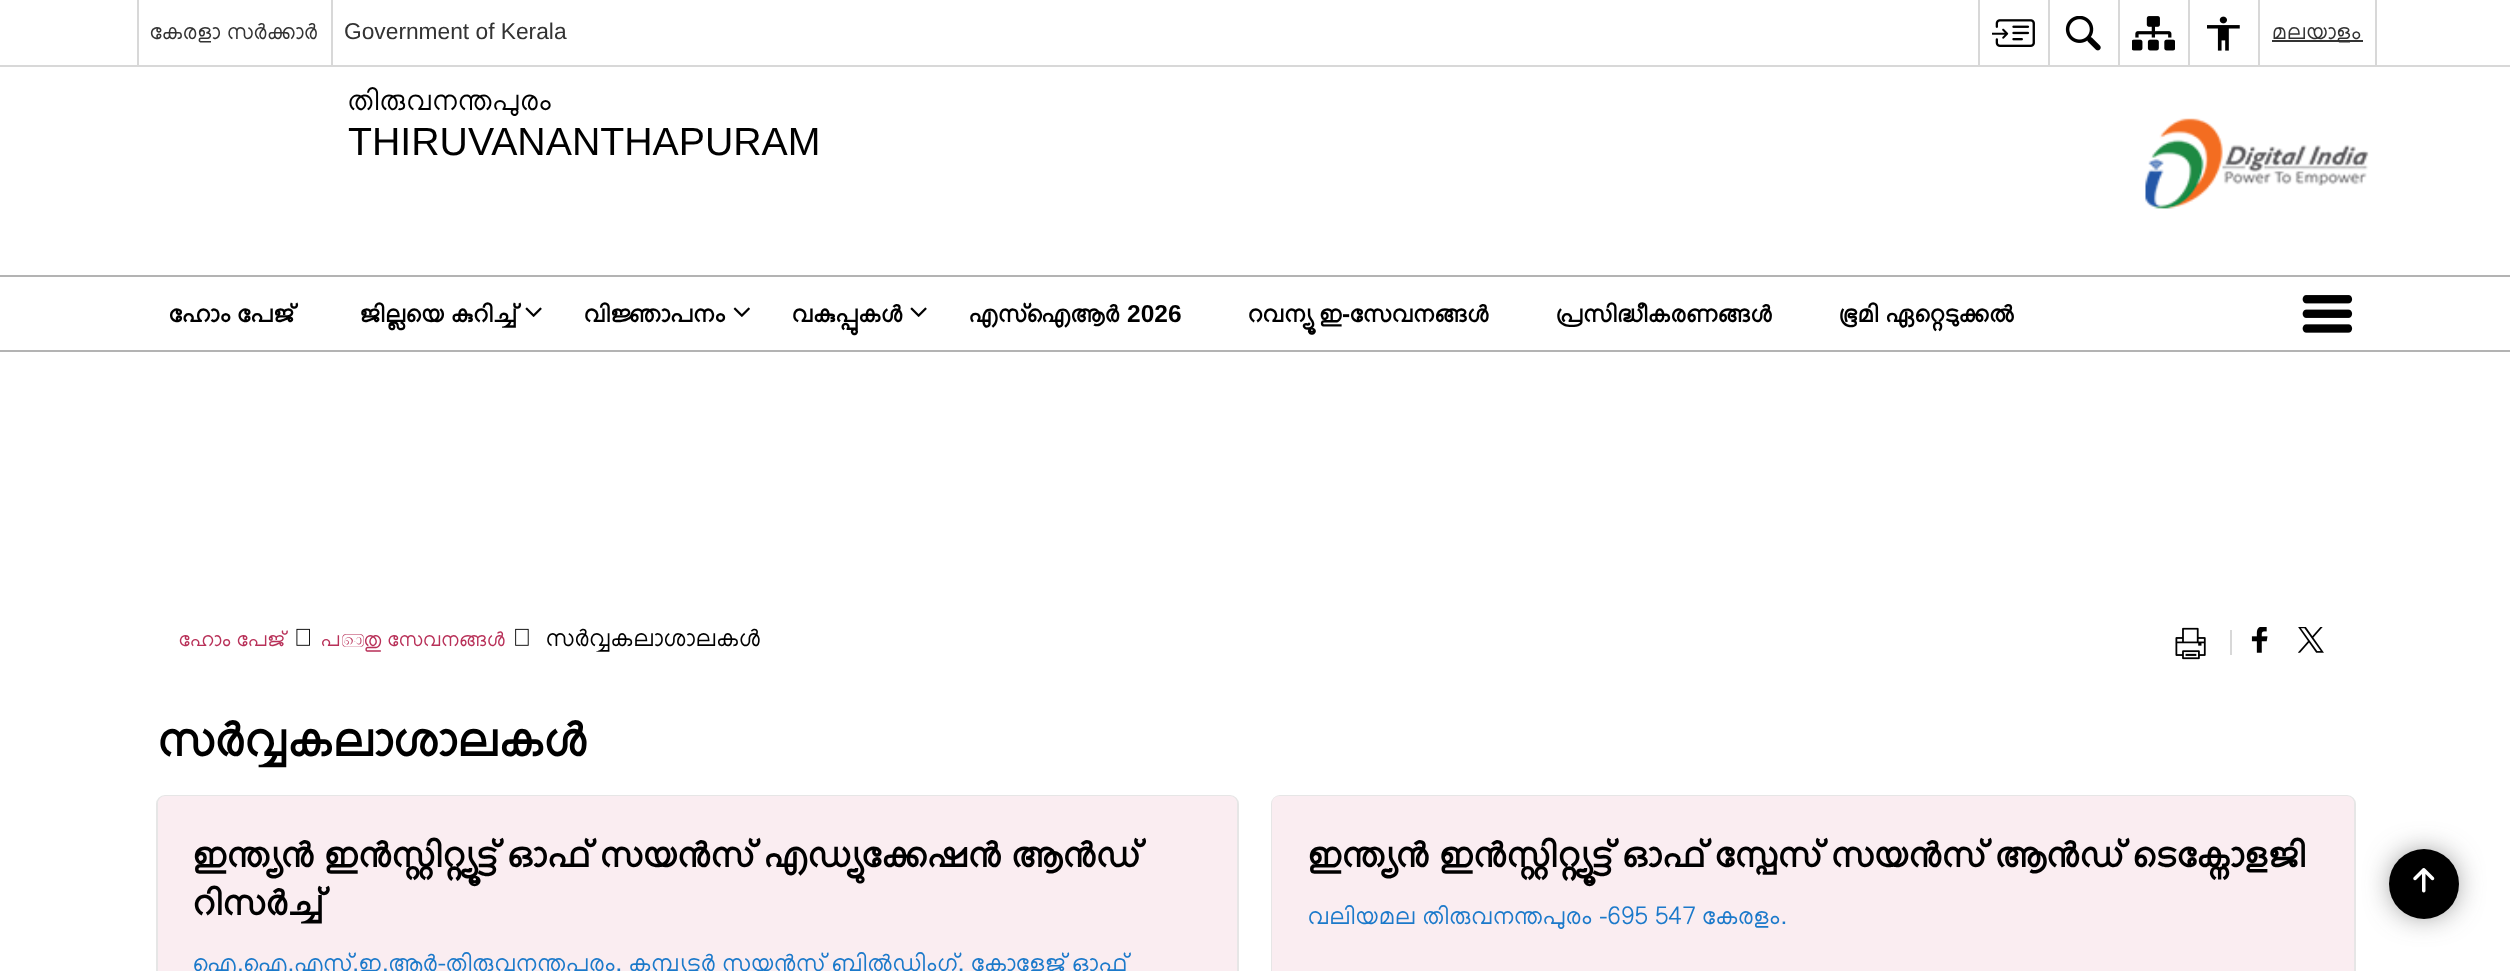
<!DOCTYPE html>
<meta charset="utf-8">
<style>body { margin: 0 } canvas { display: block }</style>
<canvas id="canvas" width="2510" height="971"></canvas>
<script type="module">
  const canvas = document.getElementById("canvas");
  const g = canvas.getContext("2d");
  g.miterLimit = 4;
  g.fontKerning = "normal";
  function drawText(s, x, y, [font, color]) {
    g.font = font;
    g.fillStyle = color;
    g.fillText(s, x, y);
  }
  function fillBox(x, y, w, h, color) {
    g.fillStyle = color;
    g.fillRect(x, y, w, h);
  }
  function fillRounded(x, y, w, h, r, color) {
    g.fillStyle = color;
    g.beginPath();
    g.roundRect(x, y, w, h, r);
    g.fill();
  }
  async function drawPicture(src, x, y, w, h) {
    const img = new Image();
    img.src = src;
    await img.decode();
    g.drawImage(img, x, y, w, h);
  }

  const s1 = ["22.75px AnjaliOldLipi", "#333333"];
  const s2 = ["22.75px Liberation Sans", "#333333"];
  const s3 = ["29.5px AnjaliOldLipi", "#000000"];
  const s4 = ["39.25px Liberation Sans", "#000000"];
  const s5 = ["bold 24.5px AnjaliOldLipi", "#000000"];
  const s6 = ["bold 24.5px Liberation Sans", "#000000"];
  const s7 = ["20.75px AnjaliOldLipi", "#B83058"];
  const s8 = ["24.5px AnjaliOldLipi", "#000000"];
  const s9 = ["bold 49px AnjaliOldLipi", "#000000"];
  const s10 = ["bold 36.75px AnjaliOldLipi", "#000000"];
  const s11 = ["24.5px AnjaliOldLipi", "#1B79CA"];

  fillBox(0, 0, 2510, 971, "#FFFFFF");
  fillBox(0, 65, 2510, 2, "#D8D8D8");
  fillBox(137, 0, 2, 65, "#D8D8D8");
  drawText("കേരളാ സർക്കാർ", 150, 39, s1);
  fillBox(331, 0, 2, 65, "#D8D8D8");
  drawText("Government of Kerala", 344, 39, s2);
  fillBox(1978, 0, 2, 65, "#D8D8D8");
  await drawPicture("pic1.png", 1992, 19, 43, 28);
  fillBox(2048, 0, 2, 65, "#D8D8D8");
  await drawPicture("pic2.png", 2065, 16, 36, 35);
  fillBox(2118, 0, 2, 65, "#D8D8D8");
  await drawPicture("pic3.png", 2132, 16, 43, 35);
  fillBox(2188, 0, 2, 65, "#D8D8D8");
  await drawPicture("pic4.png", 2207, 16, 33, 35);
  fillBox(2375, 0, 2, 65, "#D8D8D8");
  fillBox(2258, 0, 2, 65, "#D8D8D8");
  fillBox(2272, 40, 91, 2, "#333333");
  drawText("മലയാളം", 2272, 39, s1);
  drawText("തിരുവനന്തപുരം", 348, 110, s3);
  drawText("THIRUVANANTHAPURAM", 348, 155, s4);
  await drawPicture("pic5.png", 2145, 118, 224, 91);
  fillBox(0, 275, 2510, 2, "#B3B3B3");
  fillBox(0, 350, 2510, 2, "#B3B3B3");
  drawText("ഹോം പേജ്", 169, 322, s5);
  drawText("ജില്ലയെ കുറിച്ച്", 360, 322, s5);
  await drawPicture("pic6.png", 525, 307, 17, 10);
  drawText("വിജ്ഞാപനം", 584, 322, s5);
  await drawPicture("pic7.png", 733, 307, 17, 10);
  drawText("വകുപ്പുകൾ", 792, 322, s5);
  await drawPicture("pic6.png", 910, 307, 17, 10);
  drawText("എസ്ഐആർ", 969, 322, s5);
  drawText("2026", 1127, 322, s6);
  drawText("റവന്യൂ ഇ", 1248, 322, s5);
  drawText("-", 1342, 322, s6);
  drawText("സേവനങ്ങൾ", 1350, 322, s5);
  drawText("പ്രസിദ്ധീകരണങ്ങൾ", 1556, 322, s5);
  drawText("ഭൂമി ഏറ്റെടുക്കൽ", 1839, 322, s5);
  await drawPicture("pic8.png", 2302, 295, 51, 38);
  drawText("ഹോം പേജ്", 179, 646, s7);
  await drawPicture("pic9.png", 296, 628, 14, 18);
  drawText("പൊതു സേവനങ്ങൾ", 321, 646, s7);
  await drawPicture("pic10.png", 515, 628, 14, 18);
  drawText("സർവ്വകലാശാലകൾ", 546, 646, s8);
  await drawPicture("pic11.png", 2175, 627, 31, 33);
  fillBox(2230, 630, 2, 25, "#D8D8D8");
  await drawPicture("pic12.png", 2251, 627, 17, 26);
  await drawPicture("pic13.png", 2298, 627, 26, 26);
  drawText("സർവ്വകലാശാലകൾ", 158, 756, s9);
  g.beginPath();
  g.roundRect(157, 796, 1081, 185, 8);
  g.strokeStyle = "#E6E6E6";
  g.lineWidth = 2;
  g.stroke();
  fillRounded(158, 796, 1079, 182, 7, "#FAEDF1");
  drawText("ഇന്ത്യൻ ഇൻസ്റ്റിറ്റ്യൂട്ട് ഓഫ് സയൻസ് എഡ്യുക്കേഷൻ ആൻഡ്", 193, 867, s10);
  drawText("റിസർച്ച്", 193, 915, s10);
  drawText("ഐ.ഐ.എസ്.ഇ.ആർ-തിരുവനന്തപുരം, കമ്പ്യൂട്ടർ സയൻസ് ബിൽഡിംഗ്, കോളേജ് ഓഫ്", 193, 971, s11);
  g.beginPath();
  g.roundRect(1272, 796, 1083, 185, 8);
  g.stroke();
  fillRounded(1272, 796, 1082, 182, 7, "#FAEDF1");
  drawText("ഇന്ത്യൻ ഇൻസ്റ്റിറ്റ്യൂട്ട് ഓഫ് സ്പേസ് സയൻസ് ആൻഡ് ടെക്നോളജി", 1308, 867, s10);
  drawText("വലിയമല തിരുവനന്തപുരം -695 547 കേരളം.", 1308, 924, s11);
  g.fillStyle = "#3C3C3C";
  g.filter = "blur(16.5px)";
  g.beginPath();
  g.roundRect(2398, 858, 52, 52, 26);
  g.fill();
  g.filter = "none";
  g.fillStyle = "#000000";
  g.beginPath();
  g.arc(2424, 884, 35, 0, Math.PI * 2);
  g.fill();
  await drawPicture("pic14.png", 2413, 868, 22, 25);
</script>
